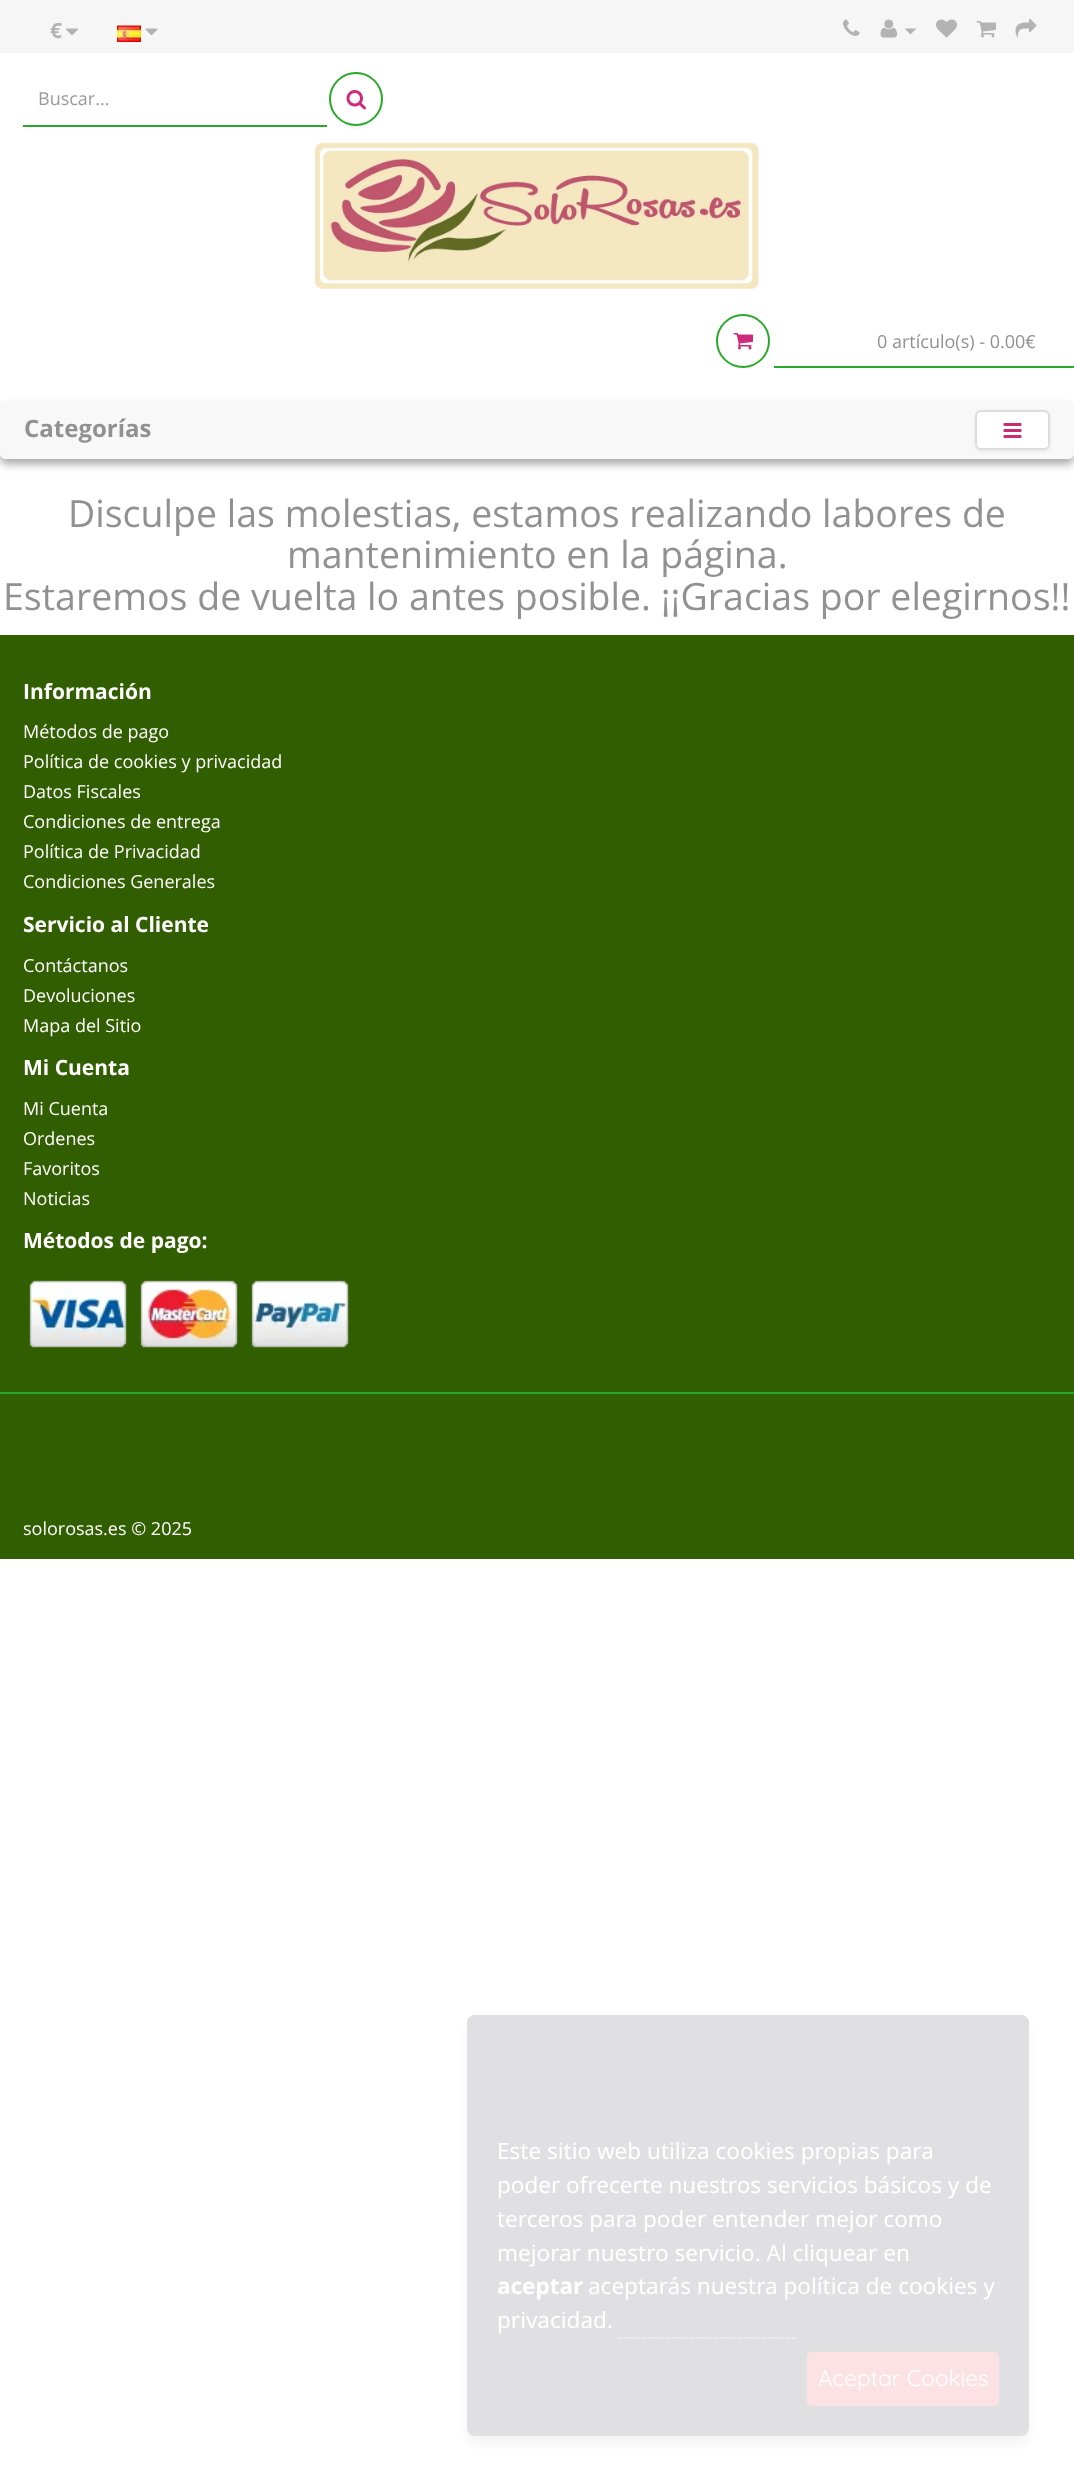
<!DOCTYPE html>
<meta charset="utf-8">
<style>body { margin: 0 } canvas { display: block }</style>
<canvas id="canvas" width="1074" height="2481"></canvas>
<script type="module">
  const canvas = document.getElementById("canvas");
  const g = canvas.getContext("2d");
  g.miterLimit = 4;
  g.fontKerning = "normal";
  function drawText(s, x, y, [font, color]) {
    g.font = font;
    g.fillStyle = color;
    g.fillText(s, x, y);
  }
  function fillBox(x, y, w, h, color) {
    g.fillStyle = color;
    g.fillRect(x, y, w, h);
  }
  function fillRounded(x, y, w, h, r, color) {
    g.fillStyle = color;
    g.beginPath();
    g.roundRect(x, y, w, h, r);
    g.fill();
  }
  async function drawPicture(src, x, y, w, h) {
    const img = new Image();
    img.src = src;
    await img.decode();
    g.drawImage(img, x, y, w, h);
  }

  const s1 = ["bold 21px Open Sans", "#B3B3B3"];
  const s2 = ["18px Open Sans", "#999999"];
  const s3 = ["18px Open Sans", "#919191"];
  const s4 = ["bold 24px Open Sans", "#919191"];
  const s5 = ["37.5px Open Sans", "#919191"];
  const s6 = ["bold 21px Open Sans", "#FFFFFF"];
  const s7 = ["18px Open Sans", "#FFFFFF"];
  const s8 = ["22.5px Noto Sans", "#FFFFFF"];
  const s9 = ["bold 22.5px Noto Sans", "#FFFFFF"];
  const s10 = ["22.5px Quicksand", "#FFFFFF"];

  fillBox(0, 0, 1074, 2481, "#FFFFFF");
  fillBox(0, 0, 1074, 53, "#F6F6F6");
  drawText("€", 50, 38, s1);
  await drawPicture("pic1.png", 66, 28, 12, 8);
  await drawPicture("pic2.png", 117, 25, 24, 17);
  await drawPicture("pic3.png", 145, 28, 13, 8);
  await drawPicture("pic4.png", 843, 19, 17, 17);
  await drawPicture("pic5.png", 880, 19, 17, 19);
  g.beginPath();
  g.moveTo(904.5, 28.5);
  g.lineTo(916.5, 28.5);
  g.lineTo(910.5, 34.5);
  g.closePath();
  g.fill();
  await drawPicture("pic6.png", 936, 19, 21, 19);
  await drawPicture("pic7.png", 976, 21, 20, 17);
  await drawPicture("pic8.png", 1015, 18, 22, 20);
  g.save();
  g.beginPath();
  g.moveTo(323, 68);
  g.lineTo(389, 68);
  g.lineTo(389, 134);
  g.lineTo(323, 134);
  g.closePath();
  g.moveTo(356, 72);
  g.bezierCurveTo(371, 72, 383, 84, 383, 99);
  g.bezierCurveTo(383, 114, 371, 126, 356, 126);
  g.bezierCurveTo(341, 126, 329, 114, 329, 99);
  g.bezierCurveTo(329, 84, 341, 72, 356, 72);
  g.closePath();
  g.clip("evenodd");
  g.fillStyle = "rgba(0, 0, 0, 0.05)";
  g.filter = "blur(1.5px)";
  g.beginPath();
  g.roundRect(329, 74, 54, 54, 27);
  g.fill();
  g.filter = "none";
  g.restore();
  fillBox(23, 125, 304, 2, "#29A929");
  drawText("Buscar...", 38, 105, s2);
  g.beginPath();
  g.arc(356, 99, 26, 0, Math.PI * 2);
  g.strokeStyle = "#29A929";
  g.lineWidth = 2;
  g.stroke();
  await drawPicture("pic9.png", 346, 90, 20, 20);
  await drawPicture("pic10.png", 314, 142, 446, 148);
  g.beginPath();
  g.arc(743, 341, 26, 0, Math.PI * 2);
  g.stroke();
  await drawPicture("pic11.png", 733, 333, 20, 17);
  fillBox(774, 366, 300, 2, "#29A929");
  drawText("0 artículo(s) - 0.00€", 877, 348, s3);
  g.save();
  g.beginPath();
  g.moveTo(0, 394);
  g.lineTo(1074, 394);
  g.lineTo(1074, 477);
  g.lineTo(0, 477);
  g.closePath();
  g.moveTo(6, 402);
  g.lineTo(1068, 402);
  g.bezierCurveTo(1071.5, 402, 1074, 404.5, 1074, 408);
  g.lineTo(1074, 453);
  g.bezierCurveTo(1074, 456.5, 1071.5, 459, 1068, 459);
  g.lineTo(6, 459);
  g.bezierCurveTo(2.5, 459, 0, 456.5, 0, 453);
  g.lineTo(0, 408);
  g.bezierCurveTo(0, 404.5, 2.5, 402, 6, 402);
  g.closePath();
  g.clip("evenodd");
  g.fillStyle = "rgba(92, 92, 92, 0.55)";
  g.filter = "blur(4px)";
  g.beginPath();
  g.roundRect(0, 407, 1074, 57, 6);
  g.fill();
  g.filter = "none";
  g.restore();
  fillRounded(0, 402, 1074, 57, 6, "rgba(221, 221, 221, 0.2)");
  drawText("Categorías", 24, 437, s4);
  g.fillStyle = "rgba(0, 0, 0, 0.05)";
  g.filter = "blur(1.5px)";
  g.beginPath();
  g.roundRect(975, 411, 75, 41, 6);
  g.fill();
  g.filter = "none";
  g.fillStyle = "#FFFFFF";
  g.beginPath();
  g.roundRect(976, 411, 73, 38, 5);
  g.fill();
  g.strokeStyle = "#DDDDDD";
  g.stroke();
  await drawPicture("pic12.png", 1003, 423, 19, 15);
  drawText("Disculpe las molestias, estamos realizando labores de", 68, 527, s5);
  drawText("mantenimiento en la página.", 287, 568, s5);
  drawText("Estaremos de vuelta lo antes posible. ¡¡Gracias por elegirnos!!", 3, 610, s5);
  fillBox(0, 635, 1074, 924, "#325E02");
  fillBox(0, 1392, 1074, 2, "#29A929");
  drawText("Información", 23, 699, s6);
  drawText("Métodos de pago", 23, 738, s7);
  drawText("Política de cookies y privacidad", 23, 768, s7);
  drawText("Datos Fiscales", 23, 798, s7);
  drawText("Condiciones de entrega", 23, 828, s7);
  drawText("Política de Privacidad", 23, 858, s7);
  drawText("Condiciones Generales", 23, 888, s7);
  drawText("Servicio al Cliente", 23, 932, s6);
  drawText("Contáctanos", 23, 972, s7);
  drawText("Devoluciones", 23, 1002, s7);
  drawText("Mapa del Sitio", 23, 1032, s7);
  drawText("Mi Cuenta", 23, 1075, s6);
  drawText("Mi Cuenta", 23, 1115, s7);
  drawText("Ordenes", 23, 1145, s7);
  drawText("Favoritos", 23, 1175, s7);
  drawText("Noticias", 23, 1205, s7);
  drawText("Métodos de pago:", 23, 1248, s6);
  await drawPicture("pic13.png", 29, 1280, 320, 68);
  drawText("solorosas.es © 2025", 23, 1535, s7);
  g.fillStyle = "rgba(214, 214, 214, 0.25)";
  g.filter = "blur(4.5px)";
  g.beginPath();
  g.roundRect(467, 2024, 562, 421, 8);
  g.fill();
  g.filter = "none";
  fillRounded(467, 2015, 562, 421, 8, "#E0E0E2");
  drawText("Este sitio web utiliza cookies propias para", 497, 2159, s8);
  drawText("poder ofrecerte nuestros servicios básicos y de", 497, 2193, s8);
  drawText("terceros para poder entender mejor como", 497, 2227, s8);
  drawText("mejorar nuestro servicio. Al cliquear en", 497, 2261, s8);
  drawText("aceptar", 497, 2294, s9);
  drawText("aceptarás nuestra política de cookies y", 588, 2294, s8);
  drawText("privacidad.", 497, 2328, s8);
  g.beginPath();
  g.moveTo(618, 2338);
  g.lineTo(796.5, 2338);
  g.strokeStyle = "#F7F7F8";
  g.lineWidth = 1.5;
  g.setLineDash([1.5, 1.5]);
  g.stroke();
  fillRounded(807, 2352, 192, 54, 5, "#FCE2E5");
  drawText("Aceptar Cookies", 818, 2386, s10);
</script>
